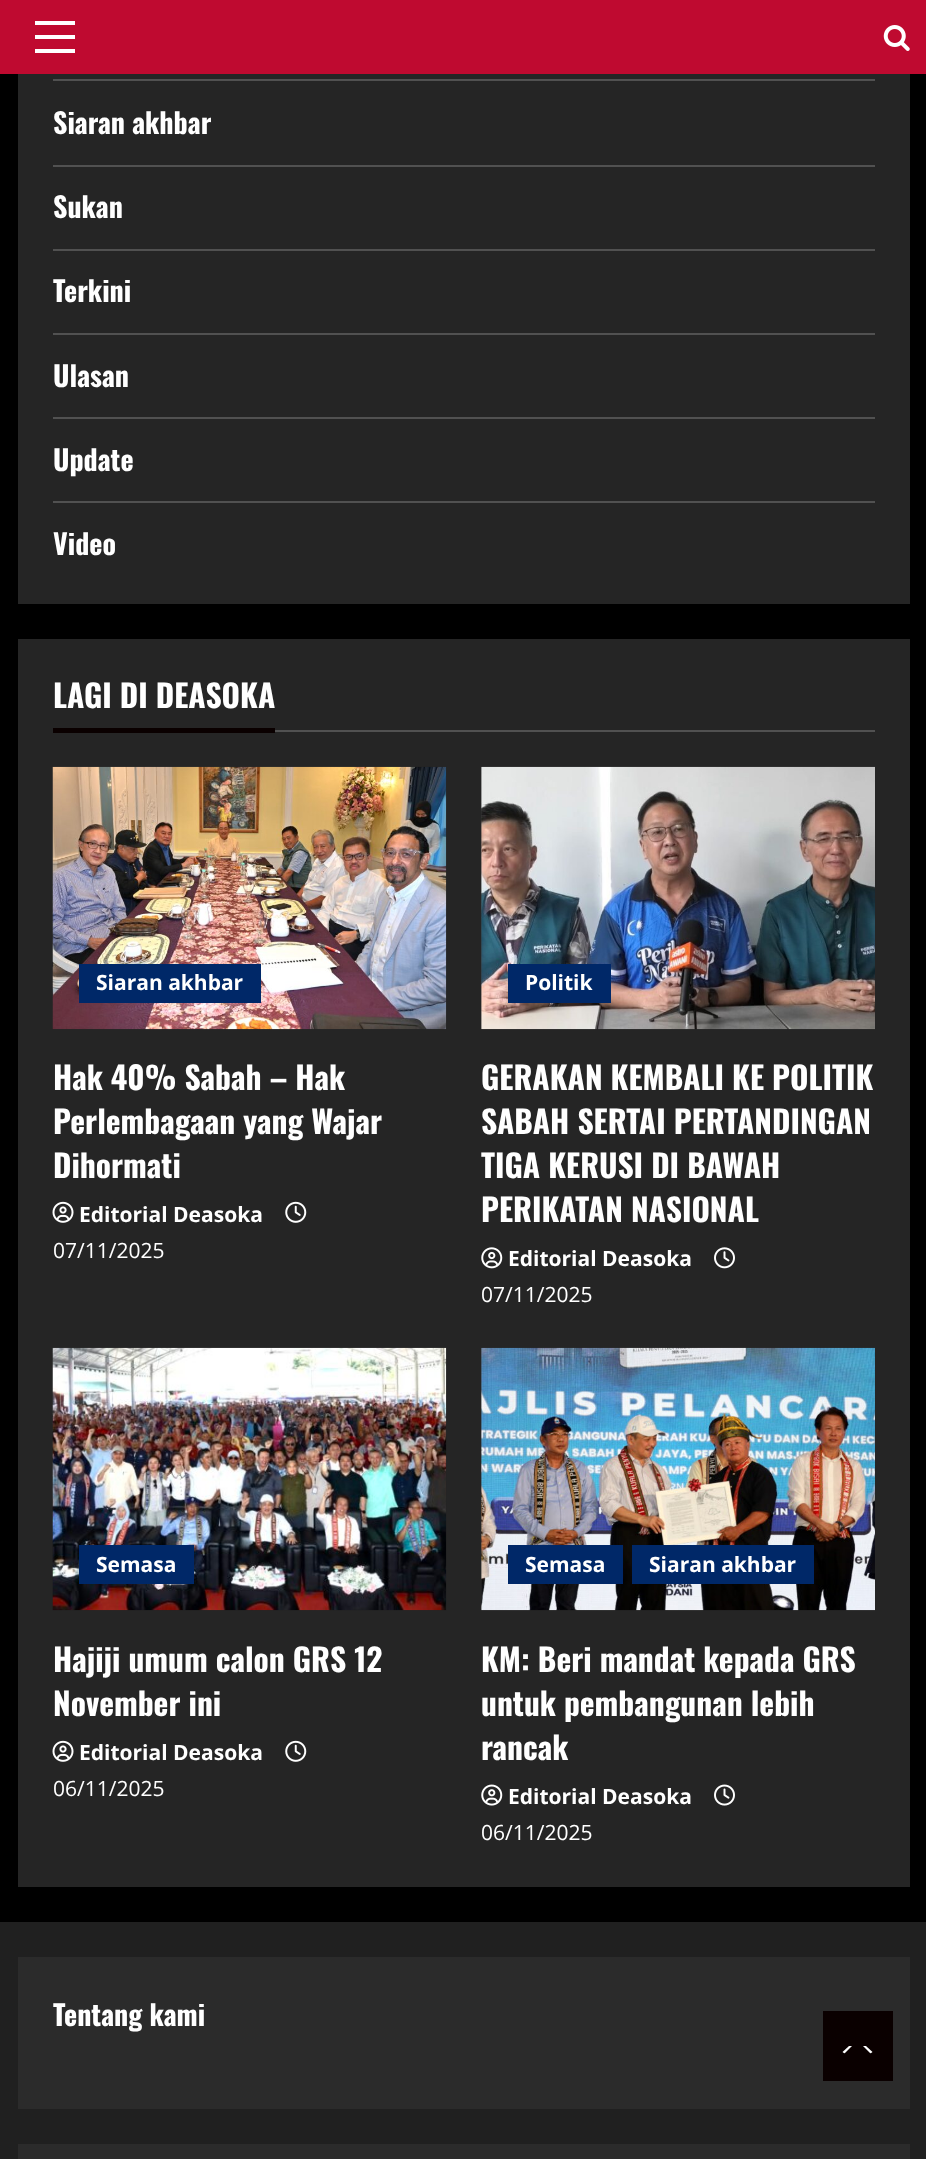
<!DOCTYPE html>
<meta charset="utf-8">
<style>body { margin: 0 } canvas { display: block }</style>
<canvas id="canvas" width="926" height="2159"></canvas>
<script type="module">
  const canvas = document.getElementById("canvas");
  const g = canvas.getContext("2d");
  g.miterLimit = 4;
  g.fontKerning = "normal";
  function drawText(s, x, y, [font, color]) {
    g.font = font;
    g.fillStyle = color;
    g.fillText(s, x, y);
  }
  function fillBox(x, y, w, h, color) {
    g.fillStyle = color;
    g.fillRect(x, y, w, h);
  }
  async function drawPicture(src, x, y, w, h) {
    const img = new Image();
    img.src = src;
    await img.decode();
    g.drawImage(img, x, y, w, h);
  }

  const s1 = ["bold 28px Oswald", "#FFFFFF"];
  const s2 = ["bold 31.5px Oswald", "#FFFFFF"];
  const s3 = ["bold 21px Open Sans", "#FFFFFF"];
  const s4 = ["21px Open Sans", "#FFFFFF"];

  fillBox(0, 0, 926, 2159, "#000000");
  fillBox(0, 0, 926, 74, "#BF0A30");
  fillBox(35, 35, 40, 4, "#FFFFFF");
  fillBox(35, 21, 40, 4, "#FFFFFF");
  fillBox(35, 49, 40, 4, "#FFFFFF");
  await drawPicture("pic1.png", 883, 25, 27, 26);
  fillBox(18, 74, 892, 530, "#252525");
  fillBox(53, 79, 822, 2, "#515151");
  fillBox(53, 165, 822, 2, "#515151");
  drawText("Siaran akhbar", 53, 134, s1);
  fillBox(53, 249, 822, 2, "#515151");
  drawText("Sukan", 53, 218, s1);
  fillBox(53, 333, 822, 2, "#515151");
  drawText("Terkini", 53, 302, s1);
  fillBox(53, 417, 822, 2, "#515151");
  drawText("Ulasan", 53, 387, s1);
  fillBox(53, 501, 822, 2, "#515151");
  drawText("Update", 53, 471, s1);
  drawText("Video", 53, 555, s1);
  fillBox(18, 639, 892, 1248, "#252525");
  fillBox(275, 730, 600, 2, "#515151");
  drawText("LAGI DI DEASOKA", 53, 708, s2);
  fillBox(53, 728, 222, 5, "#0A0000");
  await drawPicture("pic2.png", 52, 766, 395, 264);
  fillBox(79, 964, 182, 39, "#002868");
  drawText("Siaran akhbar", 96, 990, s3);
  drawText("Hak 40% Sabah – Hak", 53, 1090, s2);
  drawText("Perlembagaan yang Wajar", 53, 1134, s2);
  drawText("Dihormati", 53, 1178, s2);
  await drawPicture("pic3.png", 52, 1201, 22, 22);
  drawText("Editorial Deasoka", 79, 1222, s3);
  await drawPicture("pic4.png", 285, 1201, 22, 22);
  drawText("07/11/2025", 53, 1258, s4);
  fillBox(481, 767, 1, 262, "#3A3A3A");
  await drawPicture("pic5.png", 481, 766, 394, 264);
  fillBox(508, 964, 103, 39, "#002868");
  drawText("Politik", 525, 990, s3);
  drawText("GERAKAN KEMBALI KE POLITIK", 481, 1090, s2);
  drawText("SABAH SERTAI PERTANDINGAN", 481, 1134, s2);
  drawText("TIGA KERUSI DI BAWAH", 481, 1178, s2);
  drawText("PERIKATAN NASIONAL", 481, 1222, s2);
  await drawPicture("pic6.png", 481, 1247, 22, 22);
  drawText("Editorial Deasoka", 508, 1266, s3);
  await drawPicture("pic7.png", 714, 1247, 21, 22);
  drawText("07/11/2025", 481, 1302, s4);
  await drawPicture("pic8.png", 52, 1347, 395, 264);
  fillBox(79, 1545, 115, 39, "#002868");
  drawText("Semasa", 96, 1572, s3);
  drawText("Hajiji umum calon GRS 12", 53, 1672, s2);
  drawText("November ini", 53, 1716, s2);
  await drawPicture("pic3.png", 52, 1740, 22, 22);
  drawText("Editorial Deasoka", 79, 1760, s3);
  await drawPicture("pic4.png", 285, 1740, 22, 22);
  drawText("06/11/2025", 53, 1796, s4);
  fillBox(481, 1348, 1, 262, "#3A3A3A");
  await drawPicture("pic9.png", 481, 1347, 394, 264);
  fillBox(508, 1545, 115, 39, "#002868");
  drawText("Semasa", 525, 1572, s3);
  fillBox(632, 1545, 182, 39, "#002868");
  drawText("Siaran akhbar", 649, 1572, s3);
  drawText("KM: Beri mandat kepada GRS", 481, 1672, s2);
  drawText("untuk pembangunan lebih", 481, 1716, s2);
  drawText("rancak", 481, 1760, s2);
  await drawPicture("pic10.png", 481, 1784, 22, 22);
  drawText("Editorial Deasoka", 508, 1804, s3);
  await drawPicture("pic11.png", 714, 1784, 21, 22);
  drawText("06/11/2025", 481, 1840, s4);
  fillBox(0, 1922, 926, 237, "#202020");
  fillBox(18, 1957, 892, 152, "#2B2B2B");
  drawText("Tentang kami", 53, 2026, s1);
  fillBox(18, 2144, 892, 15, "#2B2B2B");
  fillBox(823, 2011, 70, 70, "#0A0000");
  g.fillStyle = "#FFFFFF";
  g.beginPath();
  g.moveTo(849, 2054.5);
  g.lineTo(866, 2054.5);
  g.bezierCurveTo(868.5, 2054.5, 871, 2053.5, 872.5, 2052);
  g.lineTo(866, 2046);
  g.lineTo(849, 2046);
  g.lineTo(842.5, 2052);
  g.bezierCurveTo(844, 2053.5, 846.5, 2054.5, 849, 2054.5);
  g.closePath();
  g.fill();
  g.fillStyle = "#0A0000";
  g.beginPath();
  g.moveTo(875, 2058);
  g.lineTo(840, 2058);
  g.lineTo(857.5, 2040.5);
  g.closePath();
  g.fill();
</script>
